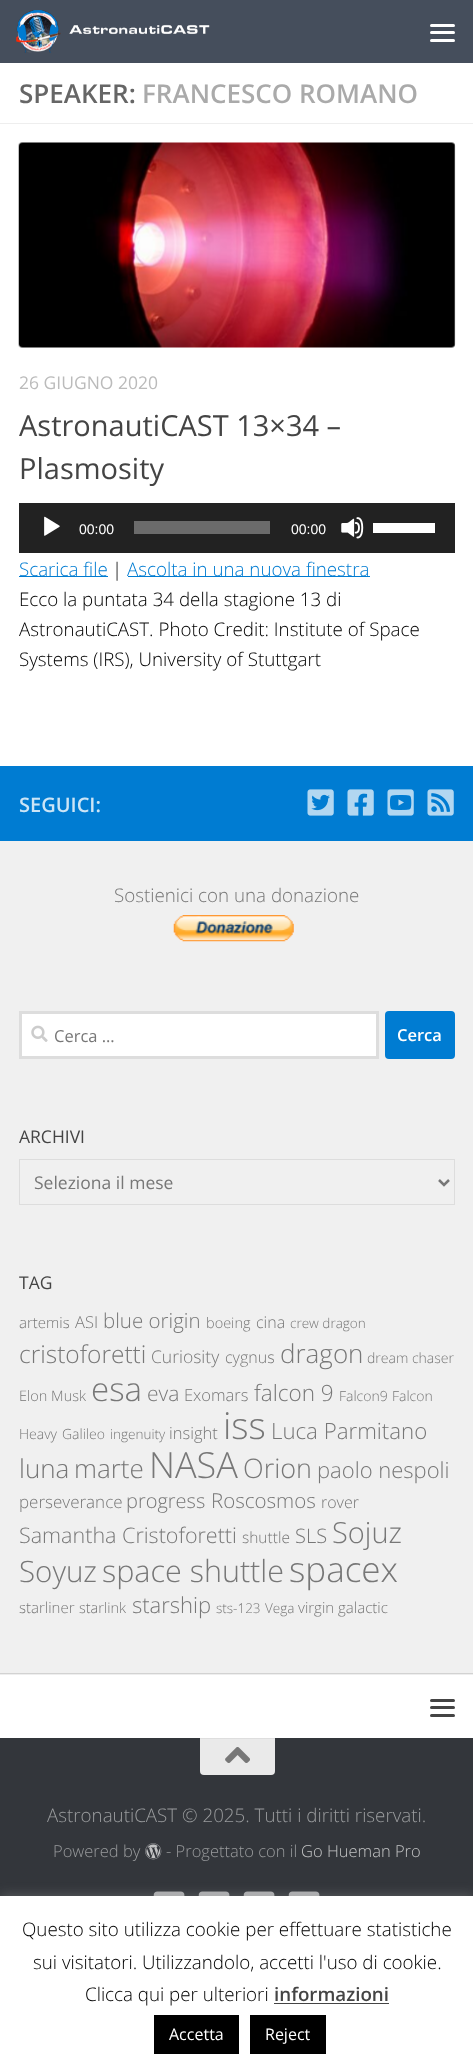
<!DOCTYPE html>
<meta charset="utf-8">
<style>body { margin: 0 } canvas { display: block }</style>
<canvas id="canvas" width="473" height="2068"></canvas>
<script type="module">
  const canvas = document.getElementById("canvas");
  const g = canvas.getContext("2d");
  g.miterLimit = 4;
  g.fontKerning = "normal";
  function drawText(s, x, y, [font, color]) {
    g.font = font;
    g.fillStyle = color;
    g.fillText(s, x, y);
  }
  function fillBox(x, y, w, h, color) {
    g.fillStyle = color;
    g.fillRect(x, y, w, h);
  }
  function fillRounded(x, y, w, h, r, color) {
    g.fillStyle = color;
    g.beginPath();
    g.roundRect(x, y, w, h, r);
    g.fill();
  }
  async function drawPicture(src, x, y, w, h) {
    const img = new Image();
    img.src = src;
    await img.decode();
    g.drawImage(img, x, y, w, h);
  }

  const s1 = ["600 26px Open Sans", "#666666"];
  const s2 = ["600 26px Open Sans", "#AAAAAA"];
  const s3 = ["17.5px Open Sans", "#BBBBBB"];
  const s4 = ["29px Open Sans", "#444444"];
  const s5 = ["14px Liberation Sans", "#FFFFFF"];
  const s6 = ["300 18.75px Open Sans", "#007CD2"];
  const s7 = ["300 18.75px Open Sans", "#000000"];
  const s8 = ["600 20px Open Sans", "#CCE5F6"];
  const s9 = ["300 18.75px Open Sans", "#777777"];
  const s10 = ["16.5px Open Sans", "#777777"];
  const s11 = ["600 16.5px Open Sans", "#FFFFFF"];
  const s12 = ["17.5px Open Sans", "#444444"];
  const s13 = ["17.5px Open Sans", "#777777"];
  const s14 = ["300 15px Open Sans", "#777777"];
  const s15 = ["300 16.5px Open Sans", "#777777"];
  const s16 = ["300 20.5px Open Sans", "#777777"];
  const s17 = ["300 14.5px Open Sans", "#777777"];
  const s18 = ["300 16px Open Sans", "#777777"];
  const s19 = ["300 13.5px Open Sans", "#777777"];
  const s20 = ["300 24.5px Open Sans", "#777777"];
  const s21 = ["300 17.5px Open Sans", "#777777"];
  const s22 = ["300 26px Open Sans", "#777777"];
  const s23 = ["300 14px Open Sans", "#777777"];
  const s24 = ["300 33px Open Sans", "#777777"];
  const s25 = ["300 21px Open Sans", "#777777"];
  const s26 = ["300 22.5px Open Sans", "#777777"];
  const s27 = ["300 37px Open Sans", "#777777"];
  const s28 = ["300 22.25px Open Sans", "#777777"];
  const s29 = ["300 36px Open Sans", "#777777"];
  const s30 = ["300 27px Open Sans", "#777777"];
  const s31 = ["300 22px Open Sans", "#777777"];
  const s32 = ["300 17px Open Sans", "#777777"];
  const s33 = ["300 20px Open Sans", "#777777"];
  const s34 = ["300 21.5px Open Sans", "#777777"];
  const s35 = ["300 15.5px Open Sans", "#777777"];
  const s36 = ["300 29px Open Sans", "#777777"];
  const s37 = ["300 29.5px Open Sans", "#777777"];
  const s38 = ["300 30.5px Open Sans", "#777777"];
  const s39 = ["300 35px Open Sans", "#777777"];
  const s40 = ["300 18.75px Open Sans", "#999B9D"];
  const s41 = ["300 16.5px Open Sans", "#999B9D"];
  const s42 = ["300 16.5px Open Sans", "#C2C3C4"];
  const s43 = ["600 18.75px Open Sans", "#444444"];
  const s44 = ["16px Open Sans", "#FFFFFF"];

  fillBox(0, 0, 473, 2068, "#EAEAEA");
  g.fillStyle = "rgba(0, 0, 0, 0.1)";
  g.filter = "blur(0.5px)";
  g.beginPath();
  g.rect(0, 64, 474, 1610);
  g.fill();
  g.filter = "none";
  fillBox(0, 0, 473, 63, "#454E5C");
  await drawPicture("pic1.png", 16, 10, 194, 43);
  fillRounded(430, 24, 25, 3, 1.5, "#FFFFFF");
  fillRounded(430, 31, 25, 3, 1.5, "#FFFFFF");
  fillRounded(430, 39, 25, 3, 1.5, "#FFFFFF");
  fillBox(0, 63, 473, 703, "#FFFFFF");
  fillBox(0, 123, 473, 1, "#EEEEEE");
  drawText("SPEAKER:", 19, 103, s1);
  drawText("FRANCESCO ROMANO", 142, 103, s2);
  await drawPicture("pic2.png", 18, 142, 438, 206);
  drawText("26 GIUGNO 2020", 19, 389, s3);
  drawText("AstronautiCAST 13×34 –", 19, 436, s4);
  drawText("Plasmosity", 19, 479, s4);
  fillBox(19, 503, 436, 50, "#222222");
  await drawPicture("pic3.png", 44, 516, 16, 20);
  drawText("00:00", 79, 534, s5);
  fillBox(134, 521, 136, 13, "#6B6B6B");
  drawText("00:00", 291, 534, s5);
  await drawPicture("pic4.png", 341, 517, 23, 22);
  fillBox(373, 523, 62, 10, "#FFFFFF");
  fillBox(19, 576, 89, 1, "#007CD2");
  drawText("Scarica file", 19, 576, s6);
  drawText("|", 112, 576, s7);
  fillBox(128, 576, 242, 1, "#007CD2");
  drawText("Ascolta in una nuova finestra", 127, 576, s6);
  drawText("Ecco la puntata 34 della stagione 13 di", 19, 606, s7);
  drawText("AstronautiCAST. Photo Credit: Institute of Space", 19, 636, s7);
  drawText("Systems (IRS), University of Stuttgart", 19, 666, s7);
  fillBox(0, 841, 473, 832, "#F0F0F0");
  fillBox(0, 766, 473, 75, "#007CD2");
  drawText("SEGUICI:", 19, 812, s8);
  await drawPicture("pic5.png", 307, 789, 27, 27);
  await drawPicture("pic6.png", 347, 789, 27, 27);
  await drawPicture("pic7.png", 387, 789, 27, 27);
  await drawPicture("pic8.png", 427, 789, 27, 27);
  drawText("Sostienici con una donazione", 114, 902, s9);
  await drawPicture("pic9.png", 173, 915, 121, 27);
  g.fillStyle = "#FFFFFF";
  g.beginPath();
  g.rect(20.5, 1012.5, 357, 45);
  g.fill();
  g.strokeStyle = "#DDDDDD";
  g.lineWidth = 3;
  g.stroke();
  await drawPicture("pic10.png", 31, 1025, 17, 17);
  drawText("Cerca …", 54, 1042, s10);
  fillRounded(385, 1011, 70, 48, 4, "#007CD2");
  drawText("Cerca", 397, 1041, s11);
  drawText("ARCHIVI", 19, 1143, s12);
  g.lineWidth = 1;
  g.strokeRect(19.5, 1159.5, 435, 45);
  g.beginPath();
  g.moveTo(439, 1180);
  g.lineTo(444, 1185);
  g.lineTo(449, 1180);
  g.strokeStyle = "#777777";
  g.lineWidth = 2.5;
  g.stroke();
  drawText("Seleziona il mese", 34, 1189, s13);
  drawText("TAG", 19, 1289, s12);
  drawText("artemis", 19, 1328, s14);
  drawText("ASI", 75, 1328, s15);
  drawText("blue origin", 103, 1328, s16);
  drawText("boeing", 206, 1328, s17);
  drawText("cina", 256, 1328, s18);
  drawText("crew dragon", 290, 1328, s19);
  drawText("cristoforetti", 19, 1363, s20);
  drawText("Curiosity", 151, 1363, s21);
  drawText("cygnus", 225, 1363, s18);
  drawText("dragon", 280, 1363, s22);
  drawText("dream chaser", 367, 1363, s23);
  drawText("Elon Musk", 19, 1401, s17);
  drawText("esa", 91, 1401, s24);
  drawText("eva", 147, 1401, s25);
  drawText("Exomars", 184, 1401, s15);
  drawText("falcon 9", 254, 1401, s26);
  drawText("Falcon9", 339, 1401, s23);
  drawText("Falcon", 392, 1401, s23);
  drawText("Heavy", 19, 1439, s23);
  drawText("Galileo", 62, 1439, s23);
  drawText("ingenuity", 110, 1439, s19);
  drawText("insight", 169, 1439, s15);
  drawText("iss", 223, 1439, s27);
  drawText("Luca Parmitano", 271, 1439, s28);
  drawText("luna", 19, 1478, s22);
  drawText("marte", 74, 1478, s22);
  drawText("NASA", 149, 1478, s29);
  drawText("Orion", 243, 1478, s30);
  drawText("paolo nespoli", 317, 1478, s31);
  drawText("perseverance", 19, 1508, s32);
  drawText("progress", 126, 1508, s33);
  drawText("Roscosmos", 211, 1508, s16);
  drawText("rover", 321, 1508, s18);
  drawText("Samantha Cristoforetti", 19, 1543, s34);
  drawText("shuttle", 242, 1543, s35);
  drawText("SLS", 295, 1543, s33);
  drawText("Sojuz", 332, 1543, s36);
  drawText("Soyuz", 19, 1582, s37);
  drawText("space shuttle", 102, 1582, s38);
  drawText("spacex", 289, 1582, s39);
  drawText("starliner", 19, 1613, s14);
  drawText("starlink", 79, 1613, s17);
  drawText("starship", 132, 1613, s31);
  drawText("sts-123", 216, 1613, s19);
  drawText("Vega", 265, 1613, s19);
  drawText("virgin galactic", 298, 1613, s14);
  fillBox(0, 1675, 473, 63, "#FFFFFF");
  fillBox(0, 1674, 473, 1, "#EEEEEE");
  fillRounded(430, 1699, 25, 3, 1.5, "#444444");
  fillRounded(430, 1706, 25, 3, 1.5, "#444444");
  fillRounded(430, 1714, 25, 3, 1.5, "#444444");
  fillBox(0, 1738, 473, 158, "#33363B");
  g.fillStyle = "#EAEAEA";
  g.beginPath();
  g.roundRect(200, 1738, 75, 37, [0, 0, 4, 4]);
  g.fill();
  fillBox(200, 1738, 75, 1, "#DEDEDE");
  await drawPicture("pic11.png", 225, 1747, 25, 16);
  drawText("AstronautiCAST © 2025. Tutti i diritti riservati.", 47, 1822, s40);
  drawText("Powered by", 53, 1857, s41);
  await drawPicture("pic12.png", 145, 1843, 17, 17);
  drawText("- Progettato con il", 166, 1857, s41);
  drawText("Go Hueman Pro", 301, 1857, s42);
  await drawPicture("pic13.png", 153, 1891, 32, 5);
  await drawPicture("pic13.png", 198, 1891, 32, 5);
  await drawPicture("pic13.png", 243, 1891, 32, 5);
  await drawPicture("pic14.png", 288, 1891, 32, 5);
  g.fillStyle = "rgba(172, 171, 171, 0.3)";
  g.filter = "blur(6px)";
  g.beginPath();
  g.rect(0, 1895, 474, 173);
  g.fill();
  g.filter = "none";
  fillBox(0, 1896, 473, 172, "#FFFFFF");
  drawText("Questo sito utilizza cookie per effettuare statistiche", 22, 1936, s7);
  drawText("sui visitatori. Utilizzandolo, accetti l'uso di cookie.", 33, 1969, s7);
  drawText("Clicca qui per ulteriori", 85, 2001, s7);
  drawText("informazioni", 274, 2001, s43);
  fillBox(274, 2003, 115, 1, "#444444");
  fillBox(154, 2015, 85, 39, "#000000");
  drawText("Accetta", 169, 2040, s44);
  fillBox(250, 2015, 76, 39, "#000000");
  drawText("Reject", 265, 2040, s44);
</script>
